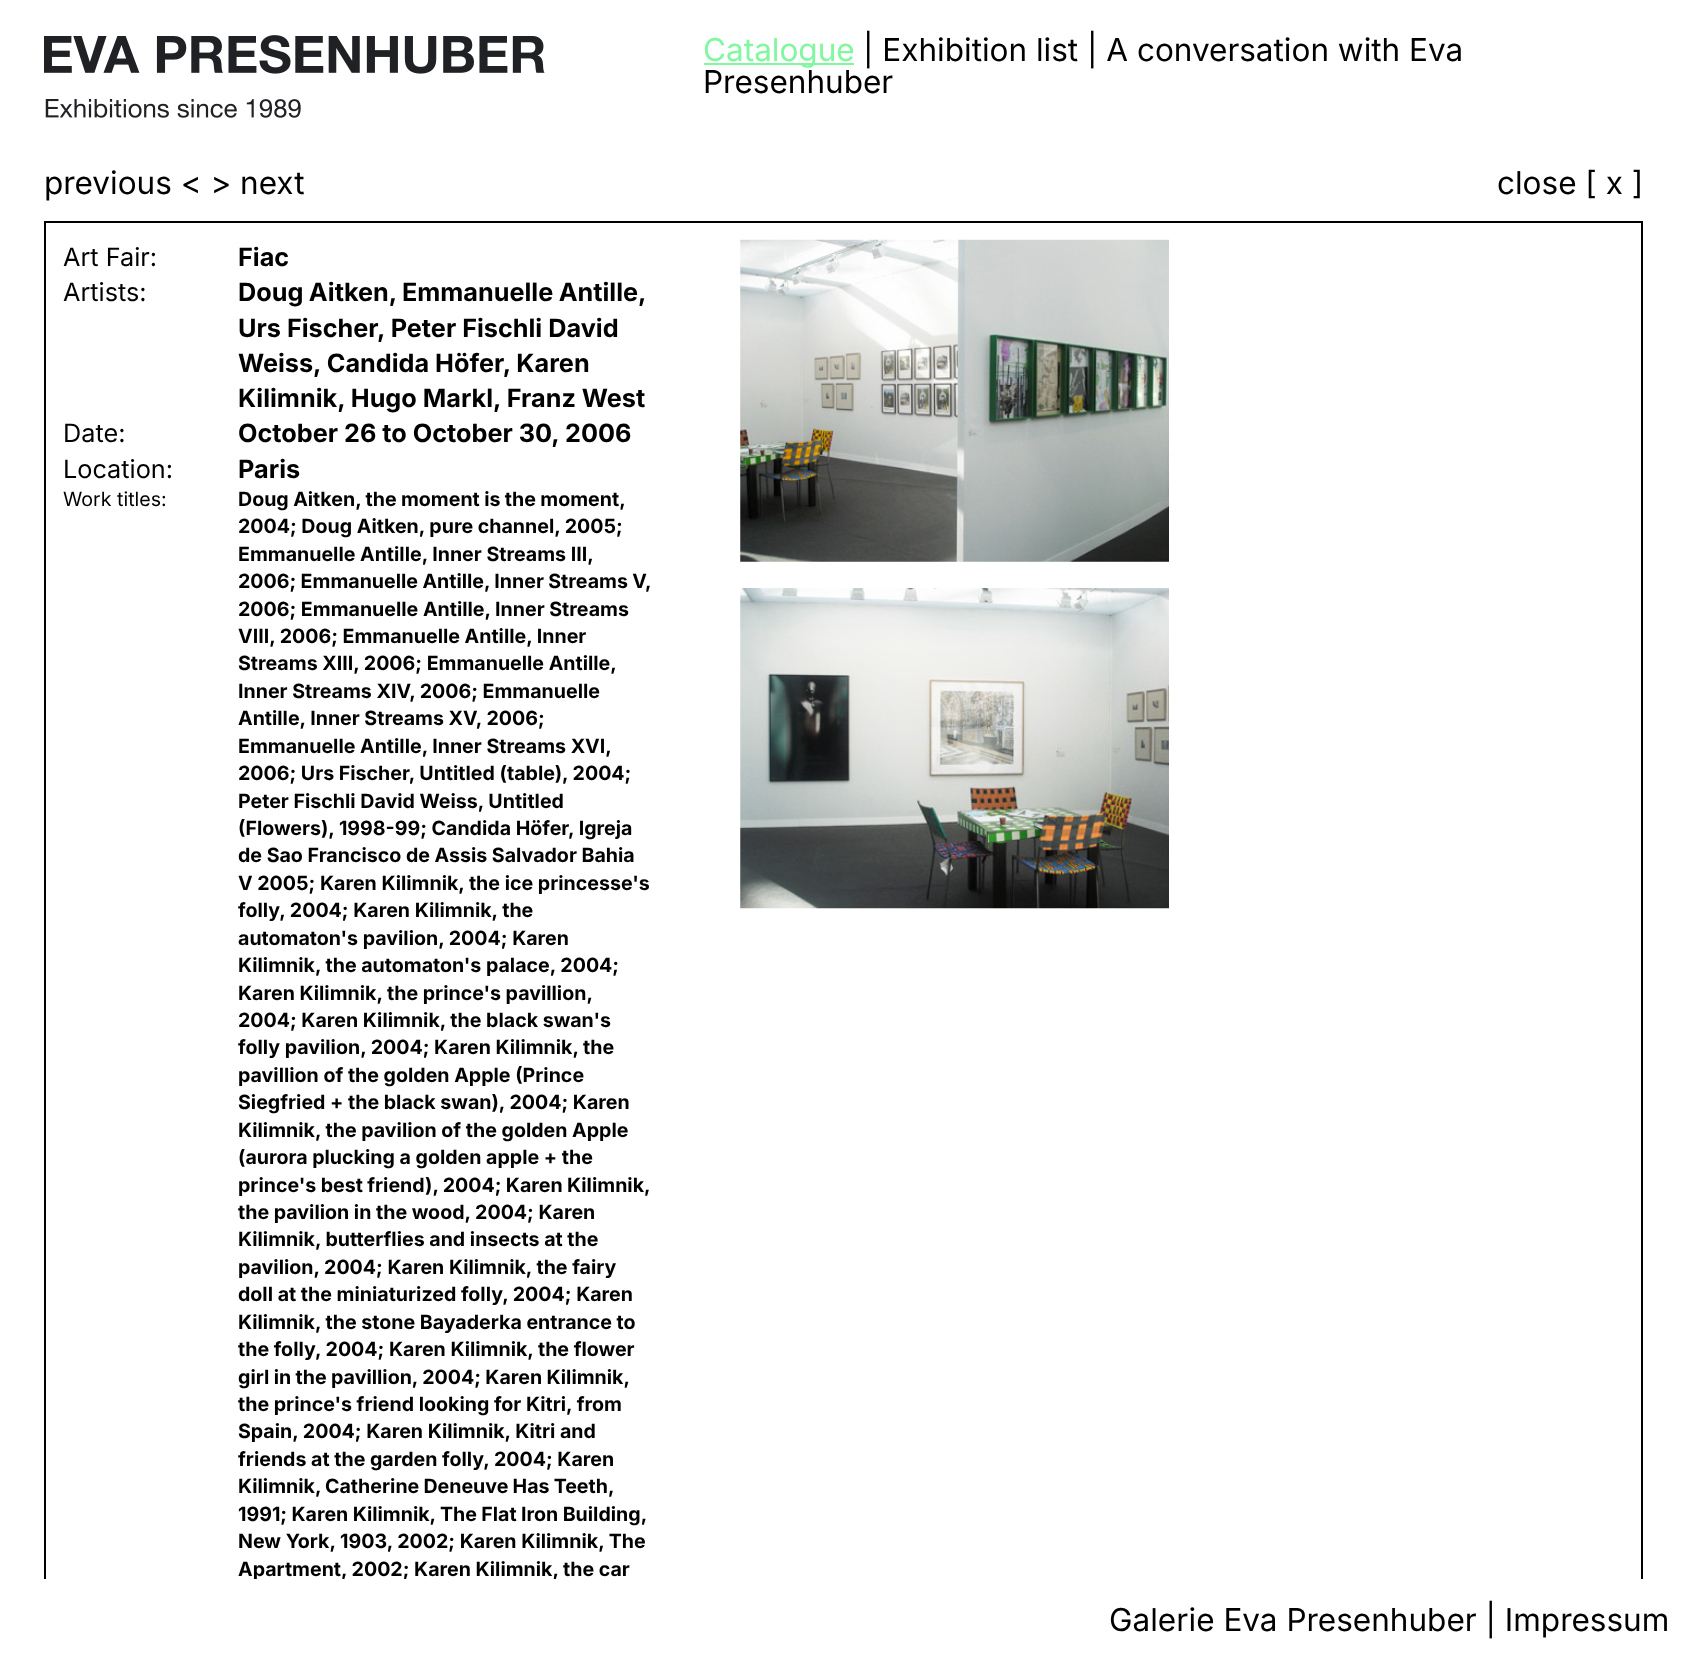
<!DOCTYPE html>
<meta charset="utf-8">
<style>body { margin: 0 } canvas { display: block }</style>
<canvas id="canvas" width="1687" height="1661"></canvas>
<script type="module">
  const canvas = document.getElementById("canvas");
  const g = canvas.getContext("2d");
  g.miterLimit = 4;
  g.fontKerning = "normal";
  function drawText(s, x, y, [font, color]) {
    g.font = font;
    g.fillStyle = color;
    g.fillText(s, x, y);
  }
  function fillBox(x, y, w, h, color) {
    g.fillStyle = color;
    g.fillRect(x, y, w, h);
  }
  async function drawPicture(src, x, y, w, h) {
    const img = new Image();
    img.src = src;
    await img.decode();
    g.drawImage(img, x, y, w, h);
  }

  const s1 = ["31.5px Inter", "#81F79F"];
  const s2 = ["31.5px Inter", "#000000"];
  const s3 = ["25.25px Inter", "#000000"];
  const s4 = ["bold 25.25px Inter", "#000000"];
  const s5 = ["19.6px Inter", "#000000"];
  const s6 = ["bold 19.6px Inter", "#000000"];

  fillBox(0, 0, 1687, 1661, "#FFFFFF");
  await drawPicture("pic1.png", 44, 35, 501, 83);
  fillBox(704, 63, 150, 2, "#81F79F");
  drawText("Catalogue", 703, 61, s1);
  drawText("| Exhibition list | A conversation with Eva", 863, 61, s2);
  drawText("Presenhuber", 703, 93, s2);
  drawText("previous < > next", 44, 194, s2);
  drawText("close [ x ]", 1497, 194, s2);
  g.strokeStyle = "#000000";
  g.lineWidth = 2;
  g.strokeRect(45, 222, 1597, 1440);
  drawText("Art Fair:", 63, 266, s3);
  drawText("Fiac", 238, 266, s4);
  drawText("Artists:", 63, 301, s3);
  g.wordSpacing = "-0.5px";
  drawText("Doug Aitken, Emmanuelle Antille,", 238, 301, s4);
  g.wordSpacing = "0px";
  drawText("Urs Fischer, Peter Fischli David", 238, 337, s4);
  drawText("Weiss, Candida Höfer, Karen", 238, 372, s4);
  drawText("Kilimnik, Hugo Markl, Franz West", 238, 407, s4);
  drawText("Date:", 63, 442, s3);
  drawText("October 26 to October 30, 2006", 238, 442, s4);
  drawText("Location:", 63, 478, s3);
  drawText("Paris", 238, 478, s4);
  drawText("Work titles:", 63, 506, s5);
  g.wordSpacing = "-0.25px";
  drawText("Doug Aitken, the moment is the moment,", 238, 506, s6);
  g.wordSpacing = "0px";
  drawText("2004; Doug Aitken, pure channel, 2005;", 238, 533, s6);
  drawText("Emmanuelle Antille, Inner Streams III,", 238, 561, s6);
  g.wordSpacing = "-0.25px";
  drawText("2006; Emmanuelle Antille, Inner Streams V,", 238, 588, s6);
  g.wordSpacing = "0px";
  drawText("2006; Emmanuelle Antille, Inner Streams", 238, 616, s6);
  drawText("VIII, 2006; Emmanuelle Antille, Inner", 238, 643, s6);
  drawText("Streams XIII, 2006; Emmanuelle Antille,", 238, 670, s6);
  drawText("Inner Streams XIV, 2006; Emmanuelle", 238, 698, s6);
  drawText("Antille, Inner Streams XV, 2006;", 238, 725, s6);
  drawText("Emmanuelle Antille, Inner Streams XVI,", 238, 753, s6);
  drawText("2006; Urs Fischer, Untitled (table), 2004;", 238, 780, s6);
  drawText("Peter Fischli David Weiss, Untitled", 238, 808, s6);
  drawText("(Flowers), 1998-99; Candida Höfer, Igreja", 238, 835, s6);
  drawText("de Sao Francisco de Assis Salvador Bahia", 238, 862, s6);
  drawText("V 2005; Karen Kilimnik, the ice princesse's", 238, 890, s6);
  drawText("folly, 2004; Karen Kilimnik, the", 238, 917, s6);
  drawText("automaton's pavilion, 2004; Karen", 238, 945, s6);
  drawText("Kilimnik, the automaton's palace, 2004;", 238, 972, s6);
  drawText("Karen Kilimnik, the prince's pavillion,", 238, 1000, s6);
  drawText("2004; Karen Kilimnik, the black swan's", 238, 1027, s6);
  drawText("folly pavilion, 2004; Karen Kilimnik, the", 238, 1054, s6);
  drawText("pavillion of the golden Apple (Prince", 238, 1082, s6);
  drawText("Siegfried + the black swan), 2004; Karen", 238, 1109, s6);
  drawText("Kilimnik, the pavilion of the golden Apple", 238, 1137, s6);
  drawText("(aurora plucking a golden apple + the", 238, 1164, s6);
  g.wordSpacing = "-0.25px";
  drawText("prince's best friend), 2004; Karen Kilimnik,", 238, 1192, s6);
  g.wordSpacing = "0px";
  drawText("the pavilion in the wood, 2004; Karen", 238, 1219, s6);
  drawText("Kilimnik, butterflies and insects at the", 238, 1246, s6);
  drawText("pavilion, 2004; Karen Kilimnik, the fairy", 238, 1274, s6);
  drawText("doll at the miniaturized folly, 2004; Karen", 238, 1301, s6);
  drawText("Kilimnik, the stone Bayaderka entrance to", 238, 1329, s6);
  drawText("the folly, 2004; Karen Kilimnik, the flower", 238, 1356, s6);
  g.wordSpacing = "-0.25px";
  drawText("girl in the pavillion, 2004; Karen Kilimnik,", 238, 1384, s6);
  g.wordSpacing = "0px";
  drawText("the prince's friend looking for Kitri, from", 238, 1411, s6);
  drawText("Spain, 2004; Karen Kilimnik, Kitri and", 238, 1438, s6);
  drawText("friends at the garden folly, 2004; Karen", 238, 1466, s6);
  g.wordSpacing = "-0.5px";
  drawText("Kilimnik, Catherine Deneuve Has Teeth,", 238, 1493, s6);
  g.wordSpacing = "-0.25px";
  drawText("1991; Karen Kilimnik, The Flat Iron Building,", 238, 1521, s6);
  g.wordSpacing = "0px";
  drawText("New York, 1903, 2002; Karen Kilimnik, The", 238, 1548, s6);
  drawText("Apartment, 2002; Karen Kilimnik, the car", 238, 1576, s6);
  await drawPicture("pic2.png", 740, 239, 429, 323);
  await drawPicture("pic3.png", 740, 588, 429, 321);
  fillBox(44, 1579, 1599, 82, "#FFFFFF");
  drawText("Galerie Eva Presenhuber | Impressum", 1109, 1631, s2);
</script>
